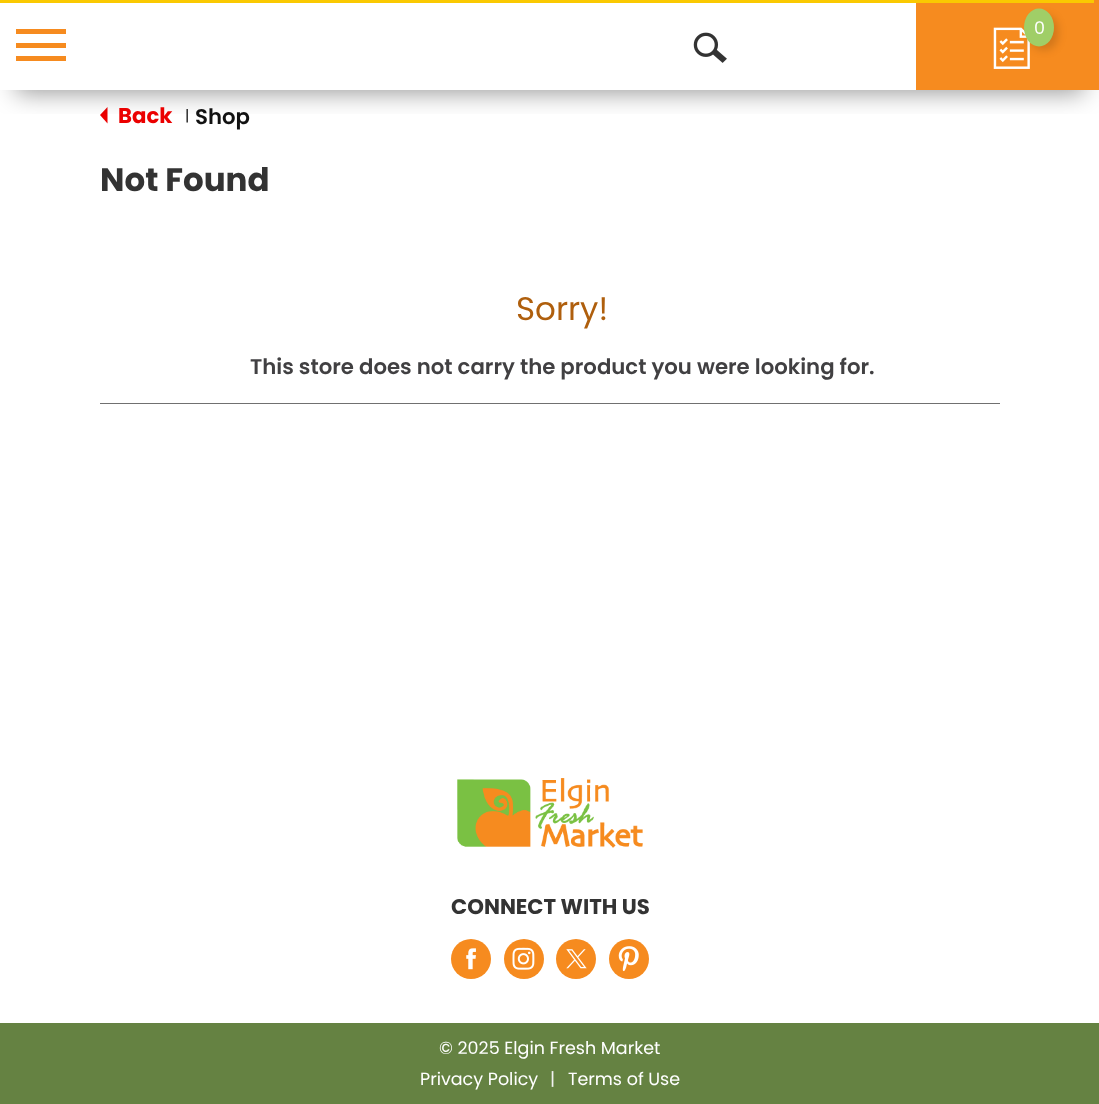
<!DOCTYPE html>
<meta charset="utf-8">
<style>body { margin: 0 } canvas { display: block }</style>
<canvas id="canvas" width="1099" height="1104"></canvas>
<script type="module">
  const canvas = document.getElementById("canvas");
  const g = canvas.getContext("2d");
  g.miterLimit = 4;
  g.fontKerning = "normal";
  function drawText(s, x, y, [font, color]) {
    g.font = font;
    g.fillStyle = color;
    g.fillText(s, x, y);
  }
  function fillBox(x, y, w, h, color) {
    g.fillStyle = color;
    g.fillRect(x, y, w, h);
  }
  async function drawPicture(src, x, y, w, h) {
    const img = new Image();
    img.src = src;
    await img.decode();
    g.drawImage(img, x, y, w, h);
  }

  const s1 = ["17.5px Poppins", "#FFFFFF"];
  const s2 = ["bold 21.25px Poppins", "#EB0000"];
  const s3 = ["15px Poppins", "#121212"];
  const s4 = ["600 21.25px Poppins", "#121212"];
  const s5 = ["bold 32.5px Poppins", "#333333"];
  const s6 = ["32.5px Poppins", "#AF5F0D"];
  const s7 = ["600 21.25px Poppins", "#414042"];
  const s8 = ["bold 21.25px Poppins", "#333333"];
  const s9 = ["17.5px Poppins", "#F2F2F2"];

  fillBox(0, 0, 1099, 1104, "#FFFFFF");
  g.fillStyle = "#EB0000";
  g.beginPath();
  g.moveTo(107.5, 107);
  g.lineTo(107.5, 123.5);
  g.lineTo(100, 115);
  g.closePath();
  g.fill();
  g.save();
  g.beginPath();
  g.rect(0, 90, 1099, 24);
  g.clip();
  g.fillStyle = "rgba(0, 0, 0, 0.4)";
  g.filter = "blur(12.5px)";
  g.beginPath();
  g.rect(16, 35, 1068, 58);
  g.fill();
  g.filter = "none";
  g.restore();
  fillBox(916, 0, 183, 90, "#F68B1F");
  await drawPicture("pic1.png", 993, 27, 37, 42);
  g.fillStyle = "rgba(0, 0, 0, 0.15)";
  g.filter = "blur(4.5px)";
  g.beginPath();
  g.roundRect(1030, 15, 28, 35, 14);
  g.fill();
  g.filter = "none";
  fillBox(0, 0, 1094, 3, "#FAC901");
  g.fillStyle = "#A0CE67";
  g.beginPath();
  g.ellipse(1039, 27.5, 15, 19, 0, 0, Math.PI * 2);
  g.fill();
  drawText("0", 1034, 34, s1);
  fillBox(16, 43, 50, 5, "#F68B1F");
  fillBox(16, 29, 50, 5, "#F68B1F");
  fillBox(16, 56, 50, 5, "#F68B1F");
  await drawPicture("pic2.png", 693, 32, 34, 31);
  drawText("Back", 118, 123, s2);
  drawText("|", 185, 121, s3);
  drawText("Shop", 195, 124, s4);
  drawText("Not Found", 100, 191, s5);
  drawText("Sorry!", 516, 320, s6);
  drawText("This store does not carry the product you were looking for.", 250, 374, s7);
  fillBox(100, 403, 900, 1, "#707070");
  await drawPicture("pic3.png", 457, 778, 186, 70);
  drawText("CONNECT WITH US", 451, 914, s8);
  g.fillStyle = "#F68B1F";
  g.beginPath();
  g.arc(471, 959, 20, 0, Math.PI * 2);
  g.fill();
  await drawPicture("pic4.png", 466, 948, 10, 22);
  g.beginPath();
  g.arc(524, 959, 20, 0, Math.PI * 2);
  g.fill();
  await drawPicture("pic5.png", 512, 947, 23, 23);
  g.beginPath();
  g.arc(576, 959, 20, 0, Math.PI * 2);
  g.fill();
  await drawPicture("pic6.png", 566, 949, 21, 20);
  g.beginPath();
  g.arc(629, 959, 20, 0, Math.PI * 2);
  g.fill();
  await drawPicture("pic7.png", 618, 946, 21, 26);
  fillBox(0, 1023, 1099, 81, "#658242");
  drawText("© 2025 Elgin Fresh Market", 439, 1054, s1);
  drawText("Privacy Policy", 420, 1085, s1);
  drawText("|", 550, 1085, s9);
  drawText("Terms of Use", 568, 1085, s1);
</script>
